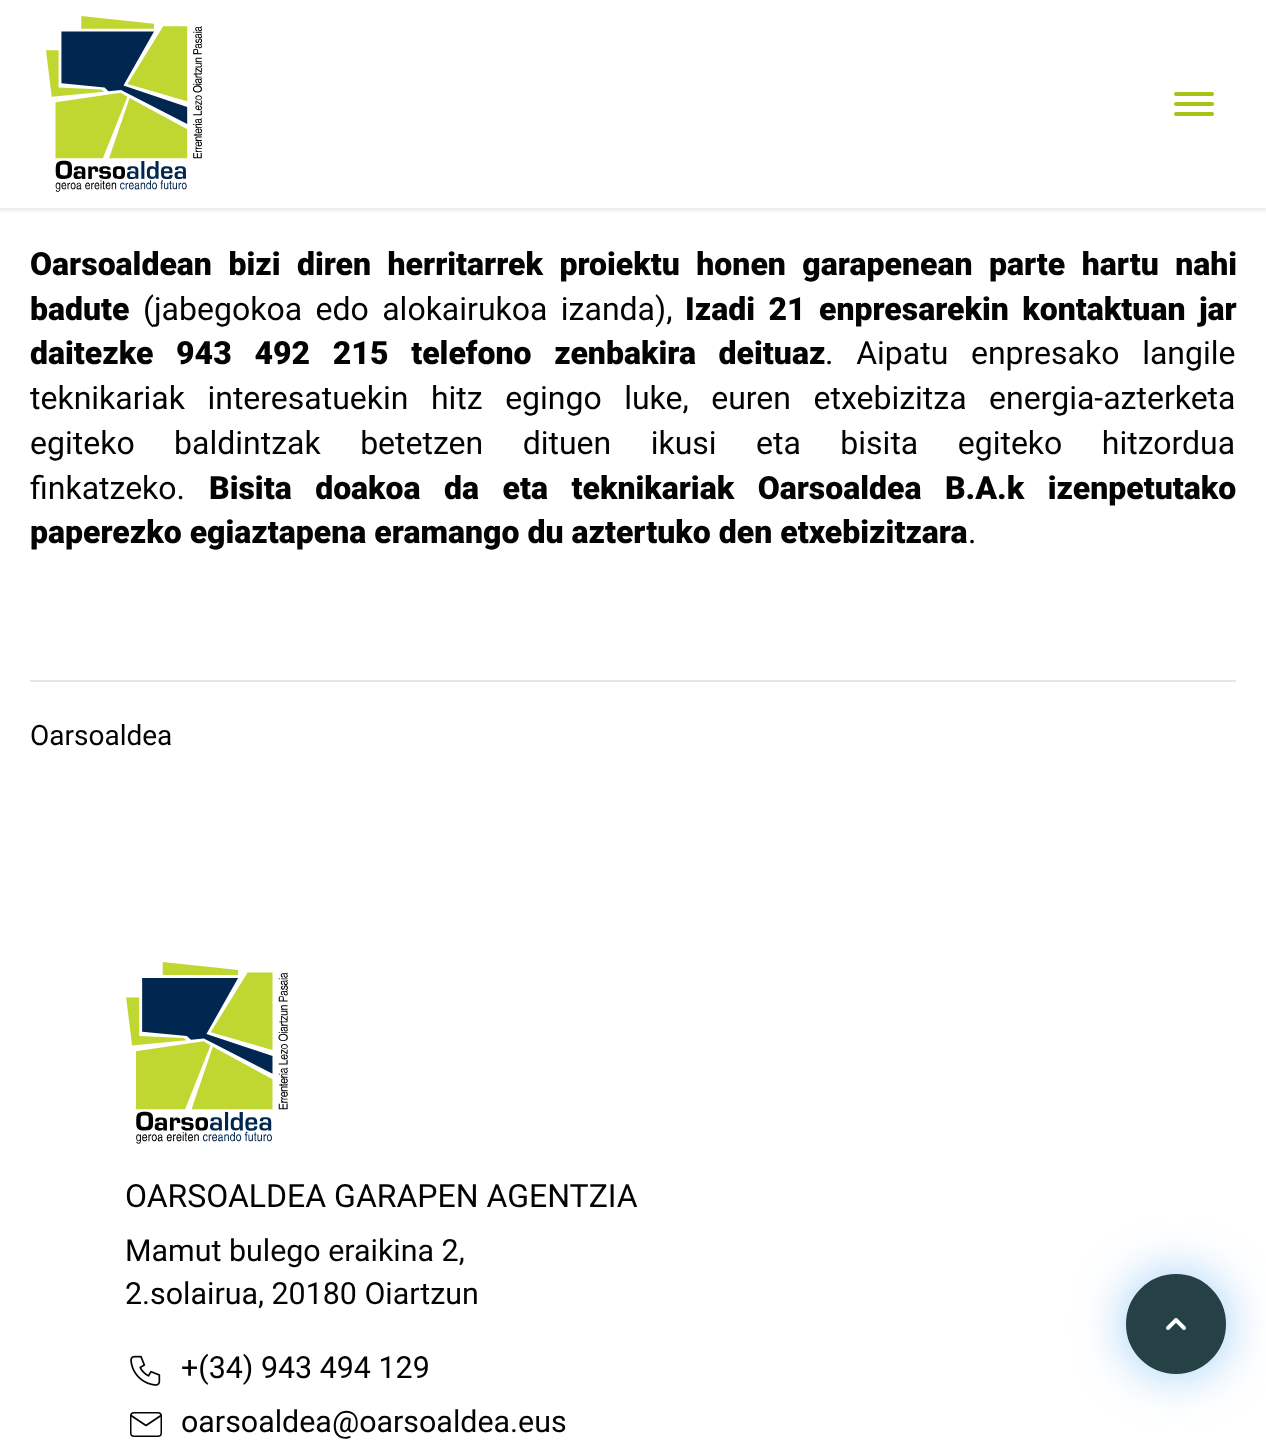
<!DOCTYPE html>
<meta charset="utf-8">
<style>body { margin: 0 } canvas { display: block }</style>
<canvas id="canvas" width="1266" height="1454"></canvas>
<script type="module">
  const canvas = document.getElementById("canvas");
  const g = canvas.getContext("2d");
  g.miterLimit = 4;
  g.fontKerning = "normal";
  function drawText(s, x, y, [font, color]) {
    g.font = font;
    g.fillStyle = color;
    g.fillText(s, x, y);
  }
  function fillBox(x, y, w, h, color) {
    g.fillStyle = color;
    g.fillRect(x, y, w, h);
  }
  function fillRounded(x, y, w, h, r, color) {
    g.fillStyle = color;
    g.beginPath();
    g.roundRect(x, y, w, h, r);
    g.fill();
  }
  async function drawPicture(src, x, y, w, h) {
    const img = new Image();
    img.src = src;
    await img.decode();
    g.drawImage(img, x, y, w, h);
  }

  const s1 = ["900 32px Roboto", "#030303"];
  const s2 = ["32px Roboto", "#030303"];
  const s3 = ["28px Roboto", "#030303"];
  const s4 = ["30.4px Roboto", "#030303"];

  fillBox(0, 0, 1266, 1454, "#FFFFFF");
  g.fillStyle = "rgba(0, 0, 0, 0.1)";
  g.filter = "blur(2px)";
  g.beginPath();
  g.rect(-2, -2, 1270, 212);
  g.fill();
  g.filter = "none";
  fillBox(0, 0, 1266, 208, "#FFFFFF");
  await drawPicture("pic1.png", 46, 16, 156, 176);
  fillRounded(1174, 92, 40, 4, 2, "#A9C215");
  fillRounded(1174, 102, 40, 4, 2, "#A9C215");
  fillRounded(1174, 112, 40, 4, 2, "#A9C215");
  g.wordSpacing = "8.5px";
  drawText("Oarsoaldean bizi diren herritarrek proiektu honen garapenean parte hartu nahi", 30, 275, s1);
  g.wordSpacing = "0px";
  drawText("badute", 30, 320, s1);
  g.wordSpacing = "5.5px";
  drawText("(jabegokoa edo alokairukoa izanda),", 143, 320, s2);
  drawText("Izadi 21 enpresarekin kontaktuan jar", 685, 320, s1);
  g.wordSpacing = "14.75px";
  drawText("daitezke 943 492 215 telefono zenbakira deituaz", 30, 364, s1);
  drawText(". Aipatu enpresako langile", 825, 364, s2);
  g.wordSpacing = "14.5px";
  drawText("teknikariak interesatuekin hitz egingo luke, euren etxebizitza energia-azterketa", 30, 409, s2);
  g.wordSpacing = "31.5px";
  drawText("egiteko baldintzak betetzen dituen ikusi eta bisita egiteko hitzordua", 30, 454, s2);
  g.wordSpacing = "0px";
  drawText("finkatzeko.", 30, 499, s2);
  g.wordSpacing = "15.5px";
  drawText("Bisita doakoa da eta teknikariak Oarsoaldea B.A.k izenpetutako", 209, 499, s1);
  g.wordSpacing = "0px";
  drawText("paperezko egiaztapena eramango du aztertuko den etxebizitzara", 30, 543, s1);
  drawText(".", 968, 543, s2);
  fillBox(30, 680, 1206, 2, "#E6E6E6");
  drawText("Oarsoaldea", 30, 745, s3);
  await drawPicture("pic2.png", 126, 962, 162, 182);
  drawText("OARSOALDEA GARAPEN AGENTZIA", 125, 1207, s2);
  drawText("Mamut bulego eraikina 2,", 125, 1261, s4);
  drawText("2.solairua, 20180 Oiartzun", 125, 1304, s4);
  await drawPicture("pic3.png", 130, 1355, 31, 31);
  drawText("+(34) 943 494 129", 181, 1378, s4);
  g.beginPath();
  g.roundRect(130.75, 1412.75, 30.5, 23.5, 3.25);
  g.strokeStyle = "#030303";
  g.lineWidth = 1.5;
  g.stroke();
  g.beginPath();
  g.moveTo(131, 1415.5);
  g.lineTo(146, 1425.5);
  g.lineTo(161, 1415.5);
  g.lineWidth = 1.7;
  g.lineCap = "round";
  g.lineJoin = "round";
  g.stroke();
  drawText("oarsoaldea@oarsoaldea.eus", 181, 1432, s4);
  g.fillStyle = "rgba(113, 182, 242, 0.7)";
  g.filter = "blur(25px)";
  g.beginPath();
  g.roundRect(1126, 1274, 100, 100, 50);
  g.fill();
  g.filter = "none";
  g.fillStyle = "#254145";
  g.beginPath();
  g.arc(1176, 1324, 49, 0, Math.PI * 2);
  g.fill();
  g.strokeStyle = "#254145";
  g.lineWidth = 2;
  g.stroke();
  await drawPicture("pic4.png", 1166, 1318, 20, 12);
</script>
